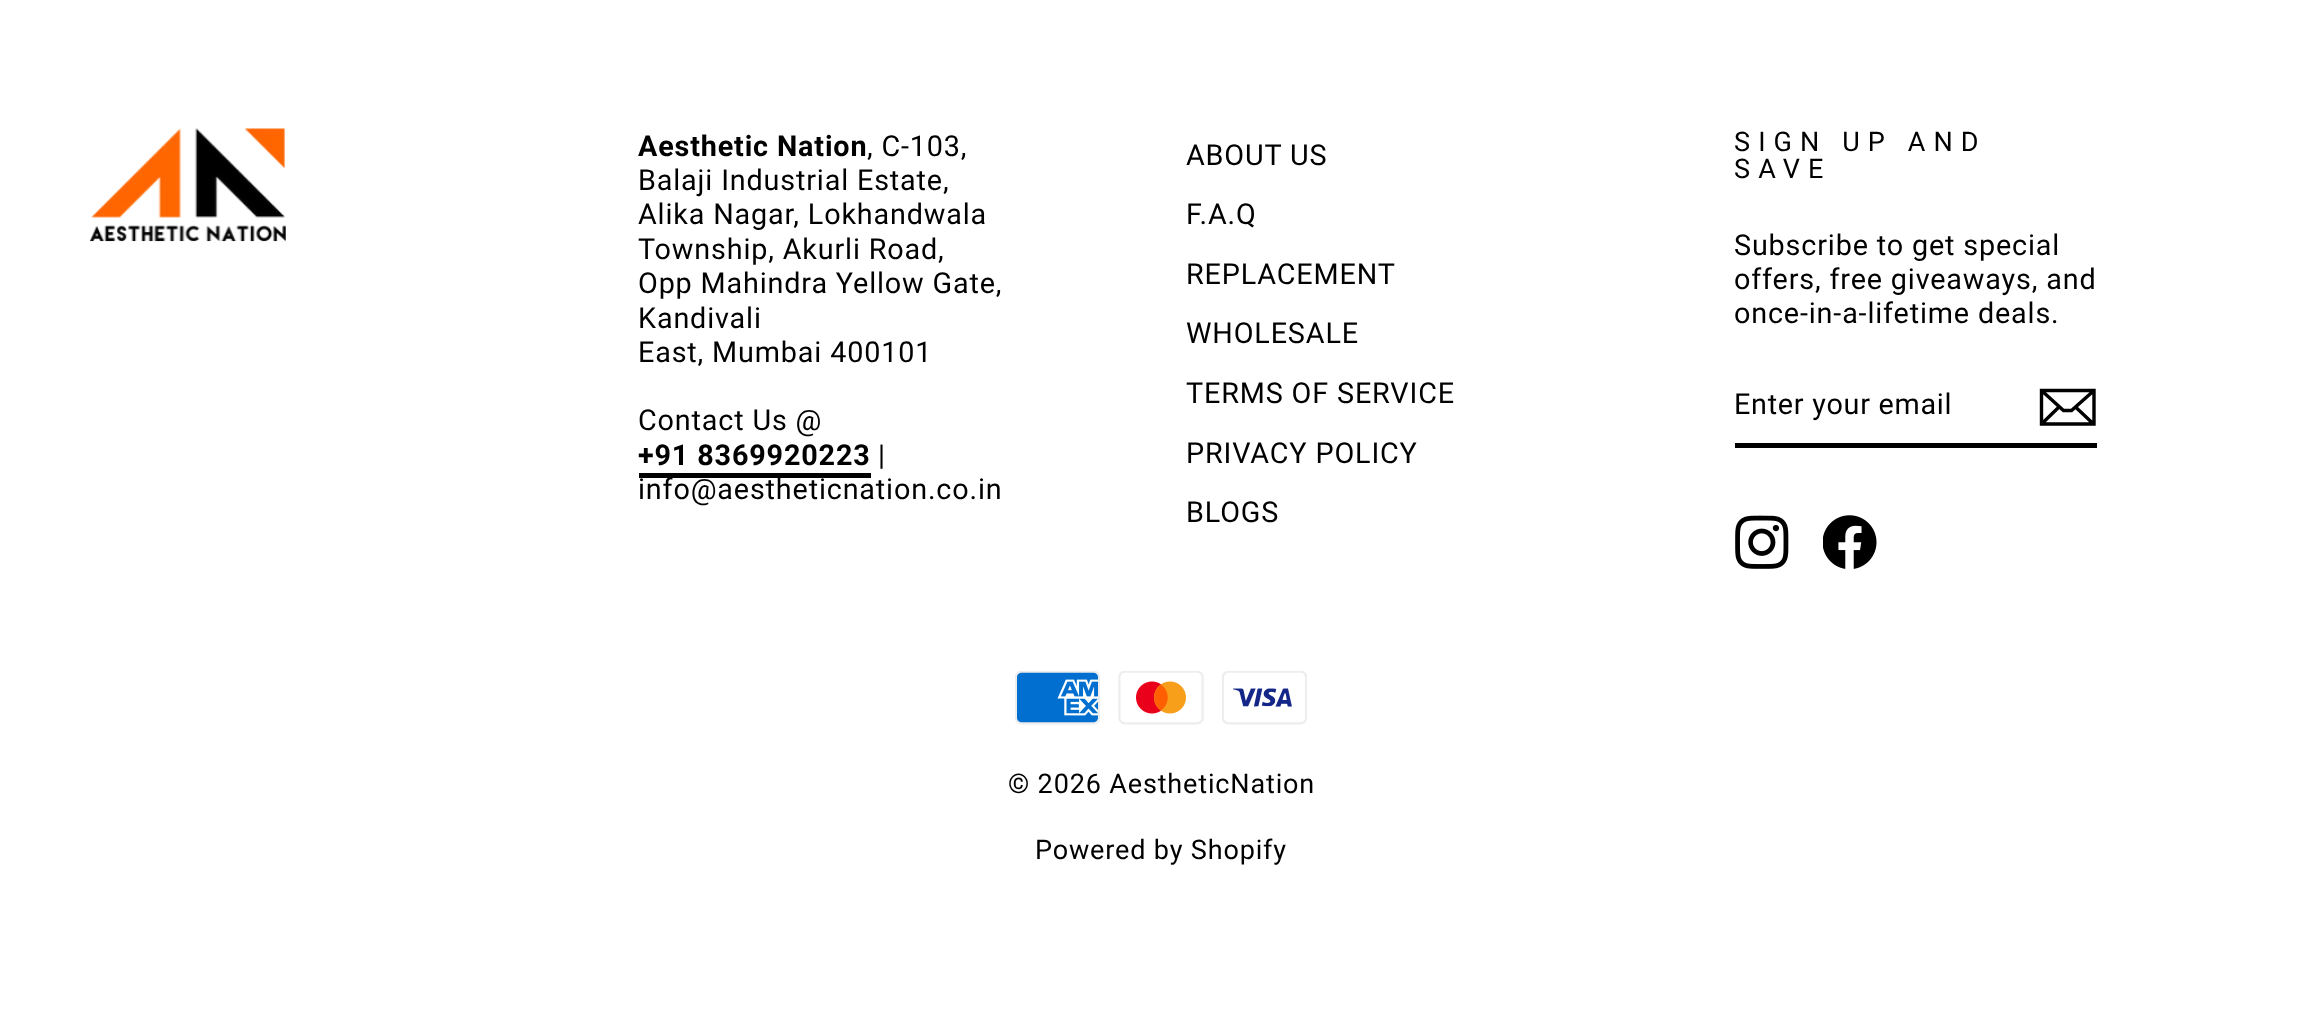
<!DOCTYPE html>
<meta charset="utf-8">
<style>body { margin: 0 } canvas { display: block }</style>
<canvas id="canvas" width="2320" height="1018"></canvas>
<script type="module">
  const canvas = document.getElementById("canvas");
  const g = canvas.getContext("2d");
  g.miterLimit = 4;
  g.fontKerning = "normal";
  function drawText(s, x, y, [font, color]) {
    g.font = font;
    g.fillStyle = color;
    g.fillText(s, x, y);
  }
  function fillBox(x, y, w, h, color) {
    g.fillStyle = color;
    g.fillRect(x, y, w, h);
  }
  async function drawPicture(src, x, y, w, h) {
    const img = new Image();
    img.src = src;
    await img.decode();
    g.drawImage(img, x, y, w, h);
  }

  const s1 = ["bold 28.75px Roboto", "#000000"];
  const s2 = ["28.75px Roboto", "#000000"];
  const s3 = ["27px Roboto", "#000000"];

  fillBox(0, 0, 2320, 1018, "#FFFFFF");
  await drawPicture("pic1.png", 90, 128, 196, 114);
  g.letterSpacing = "0.85px";
  drawText("Aesthetic Nation", 638, 156, s1);
  drawText(", C-103,", 867, 156, s2);
  drawText("Balaji Industrial Estate,", 638, 190, s2);
  drawText("Alika Nagar, Lokhandwala", 638, 224, s2);
  drawText("Township, Akurli Road,", 638, 259, s2);
  drawText("Opp Mahindra Yellow Gate,", 638, 293, s2);
  drawText("Kandivali", 638, 328, s2);
  drawText("East, Mumbai 400101", 638, 362, s2);
  drawText("Contact Us @", 638, 430, s2);
  drawText("+91 8369920223", 638, 465, s1);
  fillBox(639, 473, 232, 5, "#000000");
  drawText("|", 878, 465, s2);
  drawText("info@aestheticnation.co.in", 638, 499, s2);
  drawText("ABOUT US", 1186, 165, s2);
  drawText("F.A.Q", 1186, 224, s2);
  drawText("REPLACEMENT", 1186, 284, s2);
  drawText("WHOLESALE", 1186, 343, s2);
  drawText("TERMS OF SERVICE", 1186, 403, s2);
  drawText("PRIVACY POLICY", 1186, 463, s2);
  drawText("BLOGS", 1186, 522, s2);
  g.letterSpacing = "8.1px";
  drawText("SIGN UP AND", 1734, 151, s3);
  drawText("SAVE", 1734, 178, s3);
  g.letterSpacing = "0.85px";
  drawText("Subscribe to get special", 1734, 255, s2);
  drawText("offers, free giveaways, and", 1734, 289, s2);
  drawText("once-in-a-lifetime deals.", 1734, 323, s2);
  fillBox(1735, 443, 362, 5, "#000000");
  g.letterSpacing = "0.75px";
  drawText("Enter your email", 1734, 414, s2);
  g.beginPath();
  g.moveTo(2094, 424);
  g.lineTo(2041.5, 424);
  g.lineTo(2041.5, 390.5);
  g.lineTo(2094, 390.5);
  g.closePath();
  g.moveTo(2041.5, 390.5);
  g.lineTo(2063.5, 410.5);
  g.lineTo(2071.5, 410.5);
  g.lineTo(2094, 390.5);
  g.moveTo(2059, 407);
  g.lineTo(2042, 423.5);
  g.moveTo(2093.5, 424);
  g.lineTo(2075.5, 407);
  g.strokeStyle = "#000000";
  g.lineWidth = 3.4;
  g.stroke();
  await drawPicture("pic2.png", 1735, 515, 54, 54);
  await drawPicture("pic3.png", 1823, 515, 54, 54);
  await drawPicture("pic4.png", 1015, 671, 85, 54);
  await drawPicture("pic5.png", 1118, 671, 86, 54);
  await drawPicture("pic6.png", 1222, 671, 85, 54);
  g.letterSpacing = "0.85px";
  drawText("© 2026 AestheticNation", 1008, 793, s3);
  drawText("Powered by Shopify", 1035, 859, s3);
</script>
